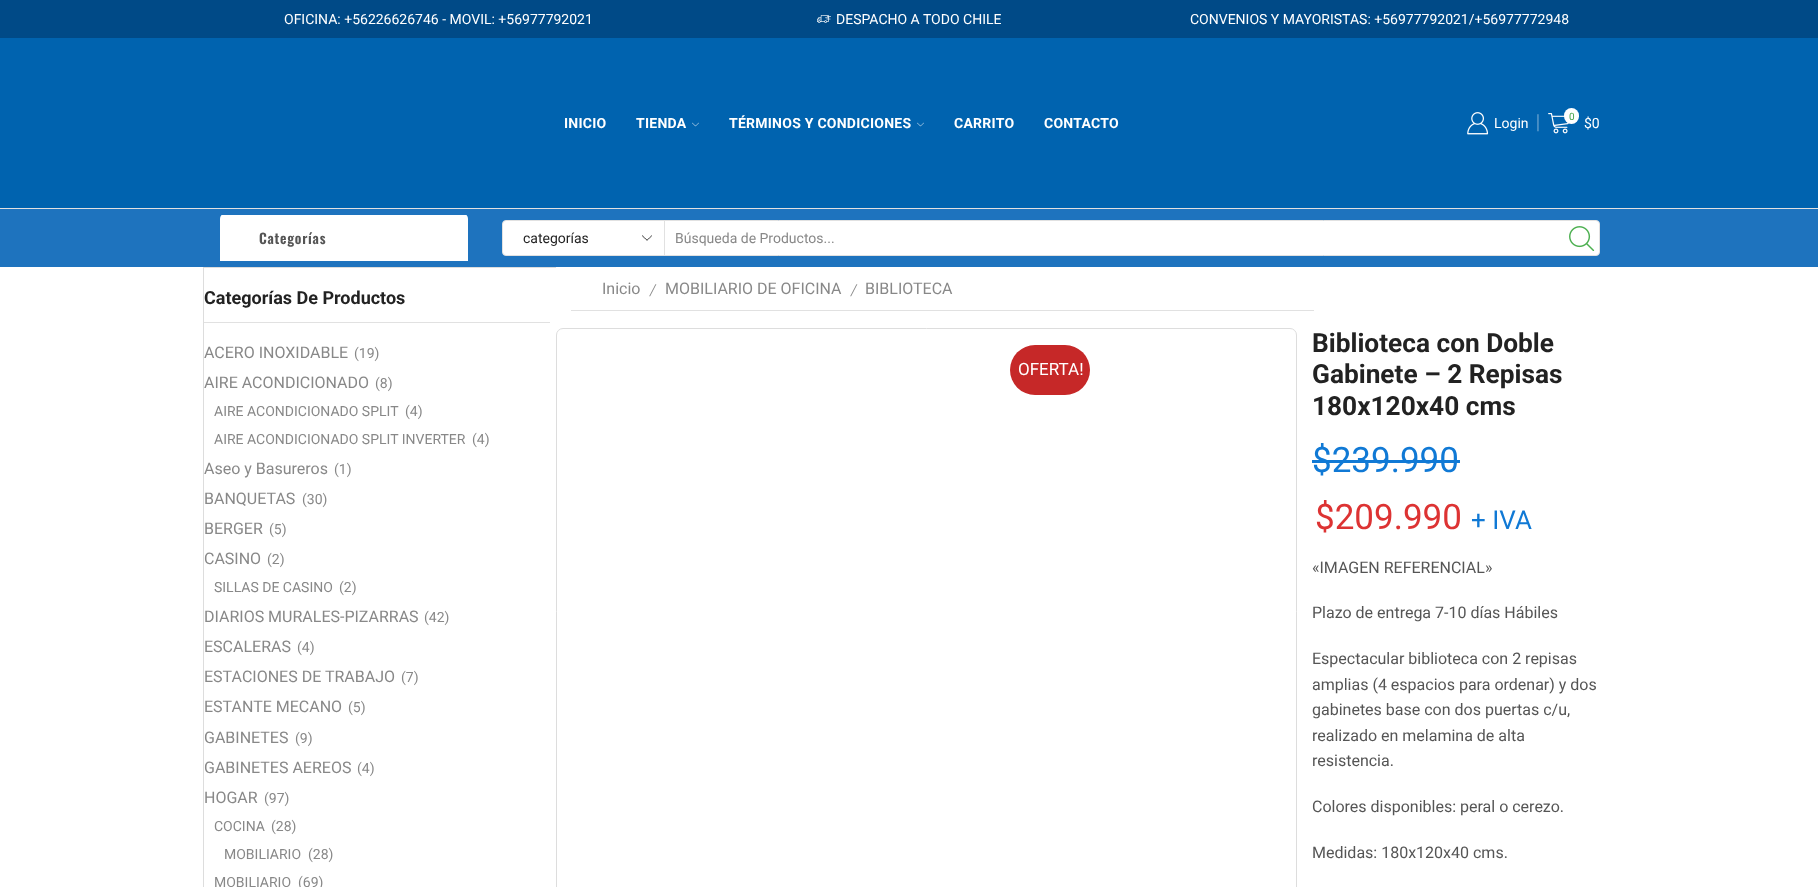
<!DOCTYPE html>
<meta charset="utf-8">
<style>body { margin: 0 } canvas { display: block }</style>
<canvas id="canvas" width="1818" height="887"></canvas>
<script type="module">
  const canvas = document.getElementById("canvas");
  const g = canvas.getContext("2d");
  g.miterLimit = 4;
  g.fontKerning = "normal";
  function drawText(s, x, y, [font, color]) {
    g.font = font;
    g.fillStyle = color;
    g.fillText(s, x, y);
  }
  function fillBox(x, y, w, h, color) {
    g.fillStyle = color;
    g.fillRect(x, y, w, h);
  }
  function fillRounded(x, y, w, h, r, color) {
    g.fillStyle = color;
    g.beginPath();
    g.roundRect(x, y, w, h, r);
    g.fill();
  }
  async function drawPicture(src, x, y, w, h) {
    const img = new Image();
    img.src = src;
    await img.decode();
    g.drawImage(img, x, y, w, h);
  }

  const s1 = ["14px Roboto", "#FFFFFF"];
  const s2 = ["bold 14px Roboto", "#FFFFFF"];
  const s3 = ["14px Liberation Serif", "#80B1D7"];
  const s4 = ["10px Roboto", "#43A047"];
  const s5 = ["600 14px Oswald", "#555555"];
  const s6 = ["14px Roboto", "#222222"];
  const s7 = ["14px Roboto", "#888888"];
  const s8 = ["bold 18px Roboto", "#222222"];
  const s9 = ["16px Roboto", "#888888"];
  const s10 = ["italic 18px Liberation Serif", "#888888"];
  const s11 = ["17px Roboto", "#FFFFFF"];
  const s12 = ["bold 26.25px Roboto", "#222222"];
  const s13 = ["35px Roboto", "#1079D5"];
  const s14 = ["35px Roboto", "#DD3333"];
  const s15 = ["26px Roboto", "#1079D5"];
  const s16 = ["16px Roboto", "#555555"];

  fillBox(0, 0, 1818, 887, "#FFFFFF");
  fillBox(0, 0, 1818, 38, "#004A87");
  drawText("OFICINA: +56226626746 - MOVIL: +56977792021", 284, 24, s1);
  await drawPicture("pic1.png", 817, 15, 14, 8);
  drawText("DESPACHO A TODO CHILE", 836, 24, s1);
  drawText("CONVENIOS Y MAYORISTAS: +56977792021/+56977772948", 1190, 24, s1);
  fillBox(0, 38, 1818, 170, "#0063AF");
  fillBox(0, 208, 1818, 1, "#E1E1E1");
  g.letterSpacing = "0.25px";
  drawText("INICIO", 564, 128, s2);
  drawText("TIENDA", 636, 128, s2);
  await drawPicture("pic2.png", 692, 122, 7, 5);
  drawText("TÉRMINOS Y CONDICIONES", 729, 128, s2);
  await drawPicture("pic2.png", 917, 122, 7, 5);
  drawText("CARRITO", 954, 128, s2);
  drawText("CONTACTO", 1044, 128, s2);
  await drawPicture("pic3.png", 1467, 112, 22, 23);
  g.letterSpacing = "0px";
  drawText("Login", 1494, 128, s1);
  drawText("│", 1533, 127, s3);
  await drawPicture("pic4.png", 1548, 113, 21, 21);
  fillRounded(1564, 108, 15, 16, 7.5, "#FFFFFF");
  drawText("0", 1569, 120, s4);
  drawText("$0", 1584, 128, s1);
  fillBox(0, 209, 1818, 58, "#1E73BE");
  g.fillStyle = "#FFFFFF";
  g.beginPath();
  g.moveTo(222, 215);
  g.lineTo(466, 215);
  g.bezierCurveTo(467, 215, 468, 217, 468, 219);
  g.lineTo(468, 261);
  g.lineTo(220, 261);
  g.lineTo(220, 219);
  g.bezierCurveTo(220, 217, 221, 215, 222, 215);
  g.closePath();
  g.fill();
  g.letterSpacing = "0.75px";
  drawText("Categorías", 259, 244, s5);
  g.fillStyle = "#FFFFFF";
  g.beginPath();
  g.roundRect(502.5, 220.5, 1097, 35, 3.5);
  g.fill();
  g.strokeStyle = "#E1E1E1";
  g.stroke();
  await drawPicture("pic5.png", 642, 235, 10, 6);
  fillBox(664, 221, 1, 34, "#E1E1E1");
  g.letterSpacing = "0px";
  drawText("categorías", 523, 243, s6);
  drawText("Búsqueda de Productos...", 675, 243, s7);
  await drawPicture("pic6.png", 1569, 226, 26, 25);
  fillBox(203, 267, 353, 1, "#DDDDDD");
  fillBox(203, 267, 1, 620, "#DDDDDD");
  fillBox(204, 322, 346, 1, "#E1E1E1");
  drawText("Categorías De Productos", 204, 304, s8);
  drawText("ACERO INOXIDABLE", 204, 358, s9);
  drawText("(19)", 354, 358, s7);
  drawText("AIRE ACONDICIONADO", 204, 388, s9);
  drawText("(8)", 375, 388, s7);
  drawText("AIRE ACONDICIONADO SPLIT", 214, 416, s7);
  drawText("(4)", 405, 416, s7);
  drawText("AIRE ACONDICIONADO SPLIT INVERTER", 214, 444, s7);
  drawText("(4)", 472, 444, s7);
  drawText("Aseo y Basureros", 204, 474, s9);
  drawText("(1)", 334, 474, s7);
  drawText("BANQUETAS", 204, 504, s9);
  drawText("(30)", 302, 504, s7);
  drawText("BERGER", 204, 534, s9);
  drawText("(5)", 269, 534, s7);
  drawText("CASINO", 204, 564, s9);
  drawText("(2)", 267, 564, s7);
  drawText("SILLAS DE CASINO", 214, 592, s7);
  drawText("(2)", 339, 592, s7);
  drawText("DIARIOS MURALES-PIZARRAS", 204, 622, s9);
  drawText("(42)", 424, 622, s7);
  drawText("ESCALERAS", 204, 652, s9);
  drawText("(4)", 297, 652, s7);
  drawText("ESTACIONES DE TRABAJO", 204, 682, s9);
  drawText("(7)", 401, 682, s7);
  drawText("ESTANTE MECANO", 204, 712, s9);
  drawText("(5)", 348, 712, s7);
  drawText("GABINETES", 204, 743, s9);
  drawText("(9)", 295, 743, s7);
  drawText("GABINETES AEREOS", 204, 773, s9);
  drawText("(4)", 357, 773, s7);
  drawText("HOGAR", 204, 803, s9);
  drawText("(97)", 264, 803, s7);
  drawText("COCINA", 214, 831, s7);
  drawText("(28)", 271, 831, s7);
  drawText("MOBILIARIO", 224, 859, s7);
  drawText("(28)", 308, 859, s7);
  drawText("MOBILIARIO", 214, 887, s7);
  drawText("(69)", 298, 887, s7);
  fillBox(571, 310, 743, 1, "#E1E1E1");
  drawText("Inicio", 602, 294, s9);
  drawText("/", 650, 296, s10);
  drawText("MOBILIARIO DE OFICINA", 665, 294, s9);
  drawText("/", 851, 296, s10);
  drawText("BIBLIOTECA", 865, 294, s9);
  g.beginPath();
  g.roundRect(556.5, 328.5, 740, 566, 6.5);
  g.strokeStyle = "#DDDDDD";
  g.stroke();
  fillRounded(1010, 345, 80, 50, 25, "#C62828");
  drawText("OFERTA!", 1018, 375, s11);
  drawText("Biblioteca con Doble", 1312, 352, s12);
  drawText("Gabinete – 2 Repisas", 1312, 383, s12);
  drawText("180x120x40 cms", 1312, 415, s12);
  drawText("$239.990", 1312, 472, s13);
  fillBox(1312, 460, 148, 3, "#1079D5");
  drawText("$209.990", 1315, 529, s14);
  drawText("+ IVA", 1471, 529, s15);
  drawText("«IMAGEN REFERENCIAL»", 1312, 573, s16);
  drawText("Plazo de entrega 7-10 días Hábiles", 1312, 618, s16);
  drawText("Espectacular biblioteca con 2 repisas", 1312, 664, s16);
  drawText("amplias (4 espacios para ordenar) y dos", 1312, 690, s16);
  drawText("gabinetes base con dos puertas c/u,", 1312, 715, s16);
  drawText("realizado en melamina de alta", 1312, 741, s16);
  drawText("resistencia.", 1312, 766, s16);
  drawText("Colores disponibles: peral o cerezo.", 1312, 812, s16);
  drawText("Medidas: 180x120x40 cms.", 1312, 858, s16);
</script>
